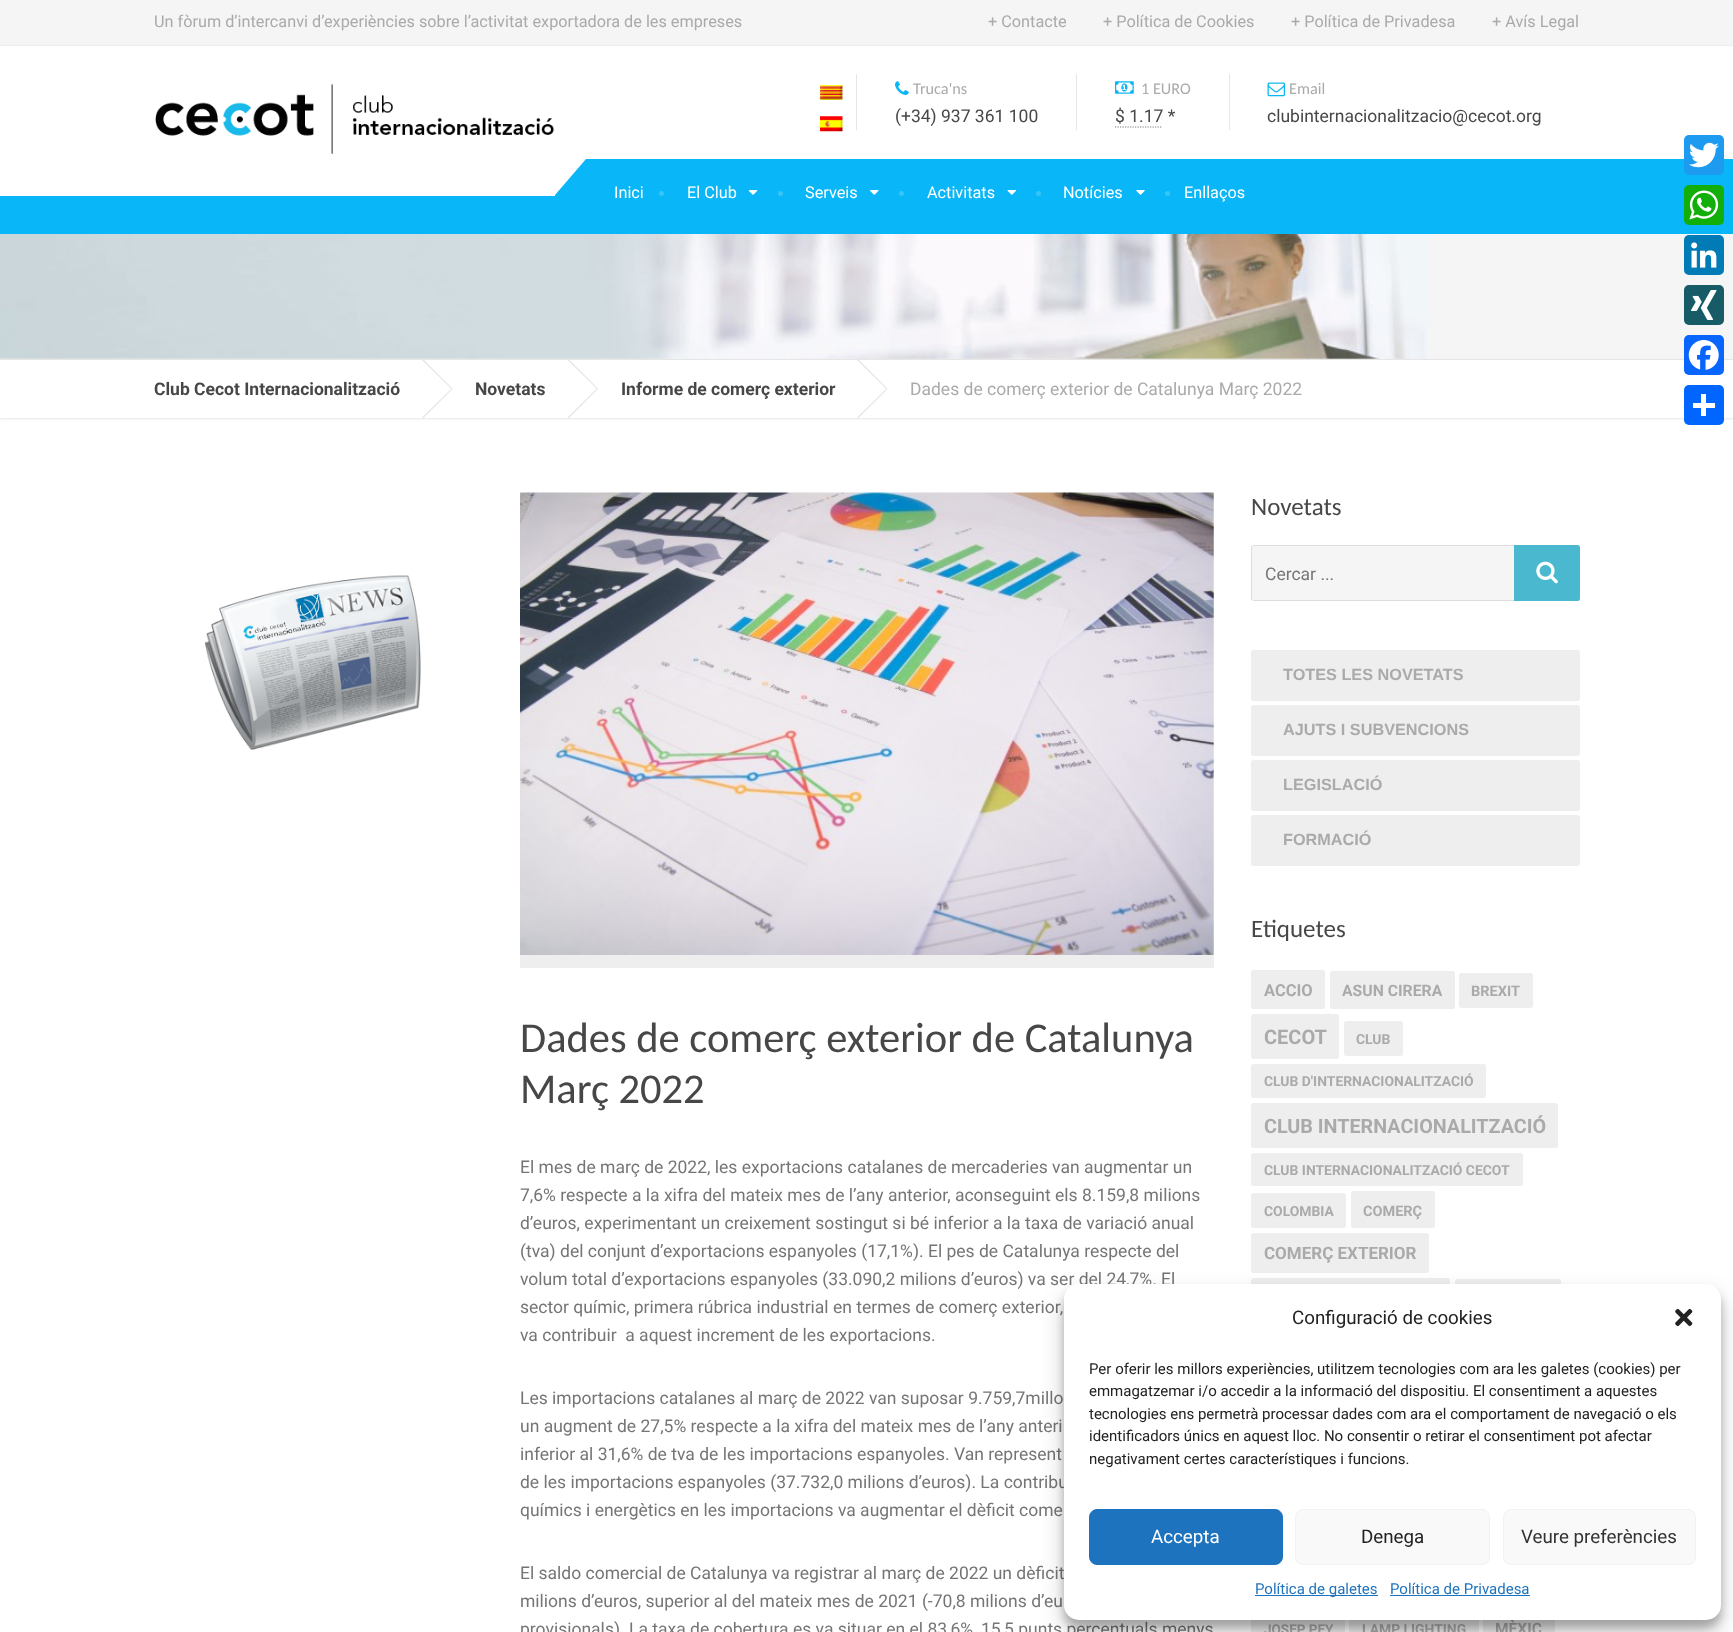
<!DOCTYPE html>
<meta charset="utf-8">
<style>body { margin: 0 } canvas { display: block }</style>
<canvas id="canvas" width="1733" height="1632"></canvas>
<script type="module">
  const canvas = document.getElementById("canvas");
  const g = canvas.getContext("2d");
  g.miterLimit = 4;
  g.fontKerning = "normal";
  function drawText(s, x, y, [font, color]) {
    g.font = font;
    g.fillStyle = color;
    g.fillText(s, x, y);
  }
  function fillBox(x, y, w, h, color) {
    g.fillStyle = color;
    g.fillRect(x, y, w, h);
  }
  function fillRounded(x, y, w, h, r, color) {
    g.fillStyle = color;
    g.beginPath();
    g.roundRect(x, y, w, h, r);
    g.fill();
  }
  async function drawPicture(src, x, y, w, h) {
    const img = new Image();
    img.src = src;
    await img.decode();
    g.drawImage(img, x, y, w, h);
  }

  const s1 = ["16.25px Roboto", "#AAAAAA"];
  const s2 = ["16.25px Carlito", "#AAAAAA"];
  const s3 = ["17.5px Roboto", "#474747"];
  const s4 = ["16.25px Roboto", "#FFFFFF"];
  const s5 = ["bold 17.5px Roboto", "#474747"];
  const s6 = ["17.5px Roboto", "#AAAAAA"];
  const s7 = ["25px Carlito", "#474747"];
  const s8 = ["17.5px Roboto", "#757575"];
  const s9 = ["bold 16.25px Liberation Sans", "#AAAAAA"];
  const s10 = ["bold 16.5px Roboto", "#AAAAAA"];
  const s11 = ["bold 15.75px Roboto", "#AAAAAA"];
  const s12 = ["bold 14.5px Roboto", "#AAAAAA"];
  const s13 = ["bold 20px Roboto", "#AAAAAA"];
  const s14 = ["bold 13.9px Roboto", "#AAAAAA"];
  const s15 = ["bold 19.75px Roboto", "#AAAAAA"];
  const s16 = ["bold 17px Roboto", "#AAAAAA"];
  const s17 = ["bold 13.5px Roboto", "#AAAAAA"];
  const s18 = ["bold 15.5px Roboto", "#AAAAAA"];
  const s19 = ["42.5px Carlito", "#474747"];
  const s20 = ["18.75px Roboto", "#222222"];
  const s21 = ["15px Roboto", "#222222"];
  const s22 = ["18.75px Roboto", "#FFFFFF"];
  const s23 = ["18.75px Roboto", "#333333"];
  const s24 = ["15px Roboto", "#1E73BE"];

  fillBox(0, 0, 1733, 1632, "#FFFFFF");
  fillBox(0, 0, 1733, 45, "#F5F5F5");
  fillBox(0, 45, 1733, 1, "#EDEDED");
  drawText("Un fòrum d’intercanvi d’experiències sobre l’activitat exportadora de les empreses", 154, 27, s1);
  drawText("+ Contacte", 988, 27, s1);
  drawText("+ Política de Cookies", 1103, 27, s1);
  drawText("+ Política de Privadesa", 1291, 27, s1);
  drawText("+ Avís Legal", 1492, 27, s1);
  fillBox(0, 159, 1733, 75, "#09B6F7");
  fillBox(0, 159, 555, 37, "#FFFFFF");
  g.beginPath();
  g.moveTo(586, 159);
  g.lineTo(555, 195);
  g.lineTo(533, 177);
  g.lineTo(564, 140);
  g.closePath();
  g.fill();
  await drawPicture("pic1.png", 155, 83, 400, 71);
  await drawPicture("pic2.png", 820, 85, 23, 15);
  await drawPicture("pic3.png", 820, 116, 23, 16);
  fillBox(856, 74, 1, 56, "#E6E6E6");
  await drawPicture("pic4.png", 895, 81, 14, 14);
  drawText("Truca'ns", 913, 94, s2);
  drawText("(+34) 937 361 100", 895, 122, s3);
  fillBox(1076, 74, 1, 56, "#E6E6E6");
  await drawPicture("pic5.png", 1115, 81, 19, 13);
  drawText("1 EURO", 1141, 94, s2);
  drawText("$ 1.17 *", 1115, 122, s3);
  g.beginPath();
  g.moveTo(1115, 127);
  g.lineTo(1162.5, 127);
  g.strokeStyle = "#808080";
  g.lineWidth = 1.2;
  g.setLineDash([1.25, 1.25]);
  g.stroke();
  fillBox(1229, 74, 1, 56, "#E6E6E6");
  await drawPicture("pic6.png", 1267, 82, 18, 15);
  drawText("Email", 1289, 94, s2);
  drawText("clubinternacionalitzacio@cecot.org", 1267, 122, s3);
  drawText("Inici", 614, 198, s4);
  g.fillStyle = "#39C4F8";
  g.beginPath();
  g.arc(661.5, 193.5, 2.5, 0, Math.PI * 2);
  g.fill();
  drawText("El Club", 687, 198, s4);
  g.fillStyle = "#39C4F8";
  g.beginPath();
  g.arc(780.5, 193.5, 2.5, 0, Math.PI * 2);
  g.fill();
  await drawPicture("pic7.png", 748, 190, 10, 5);
  drawText("Serveis", 805, 198, s4);
  g.fillStyle = "#39C4F8";
  g.beginPath();
  g.arc(901.5, 193.5, 2.5, 0, Math.PI * 2);
  g.fill();
  await drawPicture("pic8.png", 870, 190, 9, 5);
  drawText("Activitats", 927, 198, s4);
  g.fillStyle = "#39C4F8";
  g.beginPath();
  g.arc(1038.5, 193.5, 2.5, 0, Math.PI * 2);
  g.fill();
  await drawPicture("pic9.png", 1007, 190, 9, 5);
  drawText("Notícies", 1063, 198, s4);
  g.fillStyle = "#39C4F8";
  g.beginPath();
  g.arc(1167.5, 193.5, 2.5, 0, Math.PI * 2);
  g.fill();
  await drawPicture("pic10.png", 1136, 190, 9, 5);
  drawText("Enllaços", 1184, 198, s4);
  fillBox(0, 234, 1733, 125, "#F5F5F5");
  await drawPicture("pic11.png", 0, 234, 1427, 125);
  g.fillStyle = "#E6E6E6";
  g.filter = "blur(1px)";
  g.beginPath();
  g.rect(0, 360, 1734, 59);
  g.fill();
  g.filter = "none";
  fillBox(0, 360, 1733, 58, "#FFFFFF");
  fillBox(0, 359, 1733, 1, "#E6E6E6");
  drawText("Club Cecot Internacionalització", 154, 395, s5);
  g.fillStyle = "#E6E6E6";
  g.beginPath();
  g.moveTo(422, 360);
  g.lineTo(423, 359);
  g.lineTo(452.5, 388.5);
  g.lineTo(451.5, 389);
  g.closePath();
  g.fill();
  g.beginPath();
  g.moveTo(451.5, 388.5);
  g.lineTo(452.5, 389);
  g.lineTo(423, 418.5);
  g.lineTo(422, 417.5);
  g.closePath();
  g.fill();
  drawText("Novetats", 475, 395, s5);
  g.fillStyle = "#E6E6E6";
  g.beginPath();
  g.moveTo(567.5, 360);
  g.lineTo(568.5, 359);
  g.lineTo(598, 388.5);
  g.lineTo(597, 389);
  g.closePath();
  g.fill();
  g.beginPath();
  g.moveTo(597, 388.5);
  g.lineTo(598, 389);
  g.lineTo(568.5, 418.5);
  g.lineTo(567.5, 417.5);
  g.closePath();
  g.fill();
  drawText("Informe de comerç exterior", 621, 395, s5);
  g.fillStyle = "#E6E6E6";
  g.beginPath();
  g.moveTo(857, 360);
  g.lineTo(858, 359);
  g.lineTo(887.5, 388.5);
  g.lineTo(886.5, 389);
  g.closePath();
  g.fill();
  g.beginPath();
  g.moveTo(886.5, 388.5);
  g.lineTo(887.5, 389);
  g.lineTo(858, 418.5);
  g.lineTo(857, 417.5);
  g.closePath();
  g.fill();
  drawText("Dades de comerç exterior de Catalunya Març 2022", 910, 395, s6);
  await drawPicture("pic12.png", 205, 575, 216, 175);
  drawText("Novetats", 1251, 515, s7);
  g.fillStyle = "#F5F5F5";
  g.beginPath();
  g.roundRect(1251, 545, 263, 56, [2.5, 0, 0, 2.5]);
  g.fill();
  fillBox(1253, 545, 261, 1, "#DDDDDD");
  fillBox(1253, 600, 261, 1, "#DDDDDD");
  fillBox(1251, 546, 1, 54, "rgba(0, 0, 0, 0.1)");
  drawText("Cercar ...", 1265, 580, s8);
  g.fillStyle = "#4AB9CF";
  g.beginPath();
  g.roundRect(1514, 545, 66, 56, [0, 2.5, 2.5, 0]);
  g.fill();
  await drawPicture("pic13.png", 1536, 561, 22, 23);
  fillRounded(1251, 650, 329, 51, 2.5, "#EEEEEE");
  drawText("TOTES LES NOVETATS", 1283, 680, s9);
  fillRounded(1251, 705, 329, 51, 2.5, "#EEEEEE");
  drawText("AJUTS I SUBVENCIONS", 1283, 735, s9);
  fillRounded(1251, 760, 329, 51, 2.5, "#EEEEEE");
  drawText("LEGISLACIÓ", 1283, 790, s9);
  fillRounded(1251, 815, 329, 51, 2.5, "#EEEEEE");
  drawText("FORMACIÓ", 1283, 845, s9);
  drawText("Etiquetes", 1251, 937, s7);
  fillRounded(1251, 970, 74, 39, 2.5, "#EEEEEE");
  drawText("ACCIO", 1264, 996, s10);
  fillRounded(1330, 971, 125, 38, 2.5, "#EEEEEE");
  drawText("ASUN CIRERA", 1342, 996, s11);
  fillRounded(1459, 973, 74, 35, 2.5, "#EEEEEE");
  drawText("BREXIT", 1471, 996, s12);
  fillRounded(1251, 1014, 88, 45, 2.5, "#EEEEEE");
  drawText("CECOT", 1264, 1044, s13);
  fillRounded(1344, 1021, 59, 35, 2.5, "#EEEEEE");
  drawText("CLUB", 1356, 1044, s14);
  fillRounded(1251, 1064, 235, 34, 2.5, "#EEEEEE");
  drawText("CLUB D'INTERNACIONALITZACIÓ", 1264, 1086, s14);
  fillRounded(1251, 1103, 307, 45, 2.5, "#EEEEEE");
  drawText("CLUB INTERNACIONALITZACIÓ", 1264, 1133, s15);
  fillRounded(1251, 1153, 272, 33, 2.5, "#EEEEEE");
  drawText("CLUB INTERNACIONALITZACIÓ CECOT", 1264, 1175, s14);
  fillRounded(1251, 1193, 95, 35, 2.5, "#EEEEEE");
  drawText("COLOMBIA", 1264, 1216, s14);
  fillRounded(1351, 1191, 84, 37, 2.5, "#EEEEEE");
  drawText("COMERÇ", 1363, 1216, s12);
  fillRounded(1251, 1233, 178, 40, 2.5, "#EEEEEE");
  drawText("COMERÇ EXTERIOR", 1264, 1259, s16);
  fillRounded(1251, 1278, 199, 36, 2.5, "#EEEEEE");
  fillRounded(1455, 1279, 106, 34, 2.5, "#EEEEEE");
  fillBox(1251, 1620, 94, 12, "#EEEEEE");
  drawText("JOSEP PEY", 1264, 1634, s17);
  fillBox(1349, 1620, 130, 12, "#EEEEEE");
  drawText("LAMP LIGHTING", 1362, 1634, s14);
  fillBox(1483, 1620, 72, 12, "#EEEEEE");
  drawText("MÈXIC", 1495, 1634, s18);
  await drawPicture("pic14.png", 520, 492, 694, 463);
  fillBox(520, 955, 694, 13, "#EEEEEE");
  drawText("Dades de comerç exterior de Catalunya", 520, 1052, s19);
  drawText("Març 2022", 520, 1103, s19);
  drawText("El mes de març de 2022, les exportacions catalanes de mercaderies van augmentar un", 520, 1173, s8);
  drawText("7,6% respecte a la xifra del mateix mes de l’any anterior, aconseguint els 8.159,8 milions", 520, 1201, s8);
  drawText("d’euros, experimentant un creixement sostingut si bé inferior a la taxa de variació anual", 520, 1229, s8);
  drawText("(tva) del conjunt d’exportacions espanyoles (17,1%). El pes de Catalunya respecte del", 520, 1257, s8);
  drawText("volum total d’exportacions espanyoles (33.090,2 milions d’euros) va ser del 24,7%. El", 520, 1285, s8);
  drawText("sector químic, primera rúbrica industrial en termes de comerç exterior,", 520, 1313, s8);
  drawText("va contribuir  a aquest increment de les exportacions.", 520, 1341, s8);
  drawText("Les importacions catalanes al març de 2022 van suposar 9.759,7millo", 520, 1404, s8);
  drawText("un augment de 27,5% respecte a la xifra del mateix mes de l’any anteri", 520, 1432, s8);
  drawText("inferior al 31,6% de tva de les importacions espanyoles. Van represent", 520, 1460, s8);
  drawText("de les importacions espanyoles (37.732,0 milions d’euros). La contribu", 520, 1488, s8);
  drawText("químics i energètics en les importacions va augmentar el dèficit come", 520, 1516, s8);
  drawText("El saldo comercial de Catalunya va registrar al març de 2022 un dèficit", 520, 1579, s8);
  drawText("milions d’euros, superior al del mateix mes de 2021 (-70,8 milions d’eu", 520, 1607, s8);
  drawText("provisionals). La taxa de cobertura es va situar en el 83,6%, 15,5 punts percentuals menys", 520, 1635, s8);
  fillRounded(1684, 135, 40, 40, 5, "#1D9BF0");
  await drawPicture("pic15.png", 1689, 142, 30, 26);
  fillRounded(1684, 185, 40, 40, 5, "#12AF0A");
  await drawPicture("pic16.png", 1689, 190, 30, 30);
  fillRounded(1684, 235, 40, 40, 5, "#007BB5");
  await drawPicture("pic17.png", 1691, 242, 26, 26);
  fillRounded(1684, 285, 40, 40, 5, "#165B66");
  await drawPicture("pic18.png", 1691, 290, 26, 30);
  fillRounded(1684, 335, 40, 40, 5, "#0866FF");
  await drawPicture("pic19.png", 1688, 340, 31, 30);
  fillRounded(1684, 385, 40, 40, 5, "#0166FF");
  fillBox(1701, 394, 5, 22, "#FFFFFF");
  fillBox(1693, 403, 22, 5, "#FFFFFF");
  g.fillStyle = "rgba(0, 0, 0, 0.23)";
  g.filter = "blur(4px)";
  g.beginPath();
  g.roundRect(1064, 1291, 657, 337, 15);
  g.fill();
  g.filter = "none";
  g.fillStyle = "rgba(0, 0, 0, 0.19)";
  g.filter = "blur(12.5px)";
  g.beginPath();
  g.roundRect(1064, 1296, 657, 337, 15);
  g.fill();
  g.filter = "none";
  fillRounded(1064, 1284, 657, 336, 15, "#FFFFFF");
  drawText("Configuració de cookies", 1292, 1324, s20);
  await drawPicture("pic20.png", 1675, 1308, 18, 19);
  drawText("Per oferir les millors experiències, utilitzem tecnologies com ara les galetes (cookies) per", 1089, 1374, s21);
  drawText("emmagatzemar i/o accedir a la informació del dispositiu. El consentiment a aquestes", 1089, 1396, s21);
  drawText("tecnologies ens permetrà processar dades com ara el comportament de navegació o els", 1089, 1419, s21);
  drawText("identificadors únics en aquest lloc. No consentir o retirar el consentiment pot afectar", 1089, 1441, s21);
  drawText("negativament certes característiques i funcions.", 1089, 1464, s21);
  g.fillStyle = "#1E73BE";
  g.beginPath();
  g.roundRect(1089.5, 1509.5, 193, 55, 7.5);
  g.fill();
  g.strokeStyle = "#1E73BE";
  g.lineWidth = 1;
  g.setLineDash([]);
  g.stroke();
  drawText("Accepta", 1151, 1543, s22);
  g.fillStyle = "#F9F9F9";
  g.beginPath();
  g.roundRect(1295.5, 1509.5, 194, 55, 7.5);
  g.fill();
  g.strokeStyle = "#F2F2F2";
  g.stroke();
  drawText("Denega", 1361, 1543, s20);
  g.fillStyle = "#F9F9F9";
  g.beginPath();
  g.roundRect(1503.5, 1509.5, 192, 55, 7.5);
  g.fill();
  g.stroke();
  drawText("Veure preferències", 1521, 1543, s23);
  fillBox(1255, 1595, 123, 1, "#1E73BE");
  drawText("Política de galetes", 1255, 1594, s24);
  drawText("Política de Privadesa", 1390, 1594, s24);
  fillBox(1390, 1595, 140, 1, "#1E73BE");
</script>
